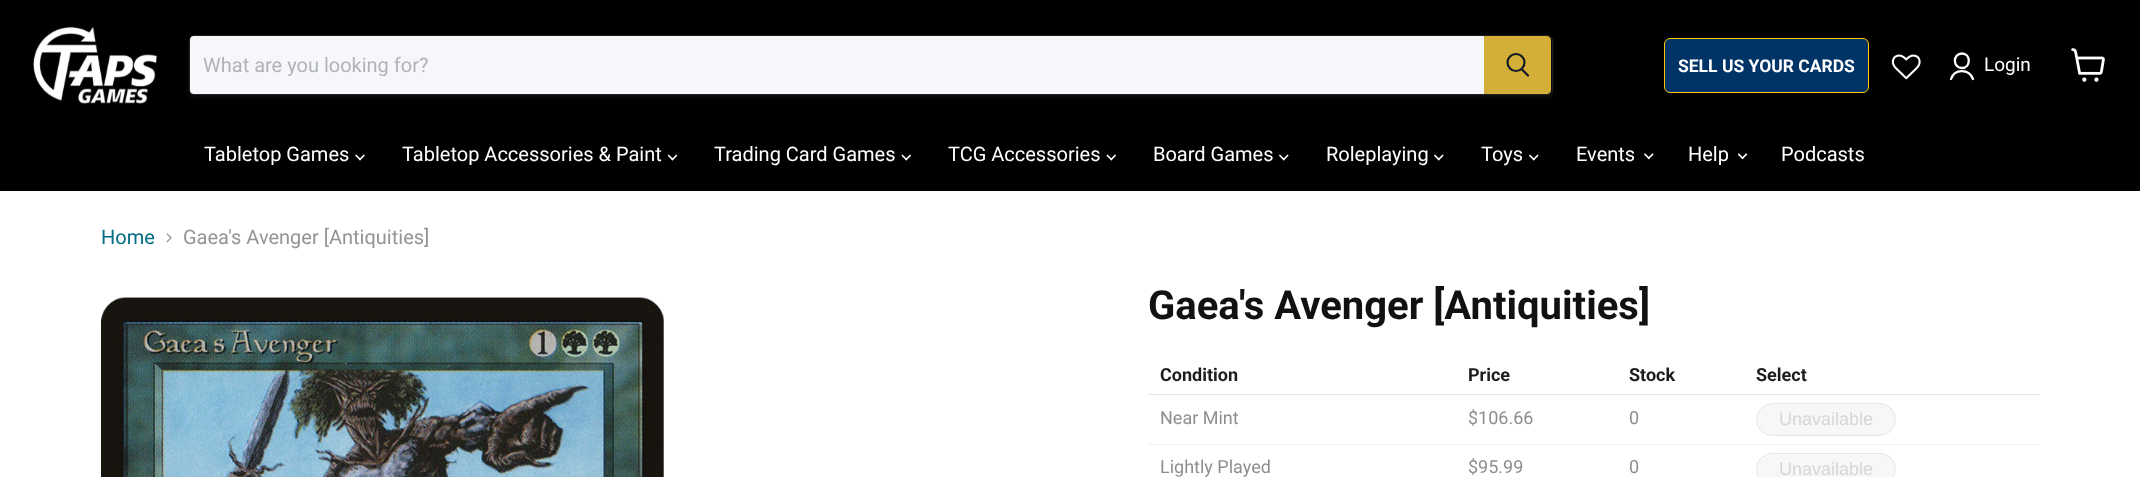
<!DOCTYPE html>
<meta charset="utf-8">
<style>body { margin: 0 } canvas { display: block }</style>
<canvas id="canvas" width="2140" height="477"></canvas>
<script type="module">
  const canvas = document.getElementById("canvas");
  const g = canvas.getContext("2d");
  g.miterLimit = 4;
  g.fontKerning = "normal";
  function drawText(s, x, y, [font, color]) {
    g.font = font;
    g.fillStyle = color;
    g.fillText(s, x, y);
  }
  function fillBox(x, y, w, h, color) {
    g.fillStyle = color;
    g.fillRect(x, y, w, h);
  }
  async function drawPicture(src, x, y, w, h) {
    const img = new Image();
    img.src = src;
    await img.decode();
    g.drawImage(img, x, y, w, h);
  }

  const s1 = ["20px Roboto", "#B2B3B5"];
  const s2 = ["bold 17.5px Roboto", "#FFFFFF"];
  const s3 = ["19px Roboto", "#FFFFFF"];
  const s4 = ["20px Roboto", "#FFFFFF"];
  const s5 = ["20px Roboto", "#046E82"];
  const s6 = ["20px Roboto", "#949494"];
  const s7 = ["bold 40px Roboto", "#111111"];
  const s8 = ["bold 18px Roboto", "#1D1D1D"];
  const s9 = ["18px Roboto", "#8E8E8E"];
  const s10 = ["18px Liberation Sans", "#D6D6D6"];

  fillBox(0, 0, 2140, 477, "#FFFFFF");
  fillBox(0, 0, 2140, 191, "#000000");
  await drawPicture("pic1.png", 33, 26, 125, 79);
  g.fillStyle = "rgba(128, 128, 128, 0.11)";
  g.filter = "blur(2px)";
  g.beginPath();
  g.roundRect(189, 38, 1364, 60, 5);
  g.fill();
  g.filter = "none";
  g.beginPath();
  g.roundRect(189.5, 35.5, 1363, 59, 4.5);
  g.strokeStyle = "rgba(128, 128, 128, 0.2)";
  g.stroke();
  g.fillStyle = "#F5F7FA";
  g.beginPath();
  g.roundRect(190, 36, 1294, 58, [4, 0, 0, 4]);
  g.fill();
  g.save();
  g.beginPath();
  g.rect(203, 53, 1268, 23);
  g.clip();
  drawText("What are you looking for?", 203, 72, s1);
  g.restore();
  g.fillStyle = "#D4AF37";
  g.beginPath();
  g.roundRect(1484.5, 36.5, 66, 57, [0, 3.5, 3.5, 0]);
  g.fill();
  g.strokeStyle = "#D4AF37";
  g.stroke();
  g.beginPath();
  g.moveTo(1528, 75.5);
  g.lineTo(1522, 69.5);
  g.strokeStyle = "#111827";
  g.lineWidth = 2.2;
  g.lineCap = "round";
  g.stroke();
  g.beginPath();
  g.arc(1516, 62.5, 8.5, 0, Math.PI * 2);
  g.stroke();
  g.fillStyle = "#003366";
  g.beginPath();
  g.roundRect(1664.5, 38.5, 204, 54, 5.5);
  g.fill();
  g.strokeStyle = "#FFC600";
  g.lineWidth = 1;
  g.stroke();
  drawText("SELL US YOUR CARDS", 1678, 72, s2);
  await drawPicture("pic2.png", 1891, 54, 30, 26);
  g.beginPath();
  g.moveTo(1962, 68);
  g.bezierCurveTo(1971, 68, 1971, 53.5, 1962, 53.5);
  g.bezierCurveTo(1952.5, 53.5, 1952.5, 68, 1962, 68);
  g.closePath();
  g.moveTo(1973, 79);
  g.bezierCurveTo(1969, 68.5, 1954.5, 68.5, 1951, 79);
  g.strokeStyle = "#FFFFFF";
  g.lineWidth = 2.3;
  g.lineJoin = "round";
  g.stroke();
  drawText("Login", 1984, 71, s3);
  await drawPicture("pic3.png", 2071, 48, 34, 34);
  drawText("Tabletop Games", 204, 161, s4);
  await drawPicture("pic4.png", 355, 154, 10, 7);
  drawText("Tabletop Accessories & Paint", 402, 161, s4);
  await drawPicture("pic5.png", 668, 154, 10, 7);
  drawText("Trading Card Games", 714, 161, s4);
  await drawPicture("pic6.png", 901, 154, 10, 7);
  drawText("TCG Accessories", 948, 161, s4);
  await drawPicture("pic6.png", 1106, 154, 10, 7);
  drawText("Board Games", 1153, 161, s4);
  await drawPicture("pic7.png", 1279, 154, 10, 7);
  drawText("Roleplaying", 1326, 161, s4);
  await drawPicture("pic7.png", 1434, 154, 10, 7);
  drawText("Toys", 1481, 161, s4);
  await drawPicture("pic7.png", 1529, 154, 10, 7);
  drawText("Events", 1576, 161, s4);
  await drawPicture("pic8.png", 1644, 153, 10, 7);
  drawText("Help", 1688, 161, s4);
  await drawPicture("pic9.png", 1738, 153, 10, 7);
  drawText("Podcasts", 1781, 161, s4);
  drawText("Home", 101, 244, s5);
  await drawPicture("pic10.png", 166, 233, 6, 10);
  drawText("Gaea's Avenger [Antiquities]", 183, 244, s6);
  await drawPicture("pic11.png", 101, 297, 563, 180);
  drawText("Gaea's Avenger [Antiquities]", 1148, 319, s7);
  drawText("Condition", 1160, 381, s8);
  drawText("Price", 1468, 381, s8);
  drawText("Stock", 1629, 381, s8);
  fillBox(1148, 394, 892, 1, "#E5E5E5");
  drawText("Select", 1756, 381, s8);
  drawText("Near Mint", 1160, 424, s9);
  drawText("$106.66", 1468, 424, s9);
  drawText("0", 1629, 424, s9);
  fillBox(1148, 444, 892, 1, "#F2F2F2");
  g.fillStyle = "#F7F7F7";
  g.beginPath();
  g.roundRect(1756.5, 403.5, 139, 32, 16);
  g.fill();
  g.strokeStyle = "#E6E6E6";
  g.lineWidth = 1;
  g.lineJoin = "miter";
  g.stroke();
  drawText("Unavailable", 1779, 425, s10);
  drawText("Lightly Played", 1160, 473, s9);
  drawText("$95.99", 1468, 473, s9);
  drawText("0", 1629, 473, s9);
  g.fillStyle = "#F7F7F7";
  g.beginPath();
  g.roundRect(1756.5, 453.5, 139, 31, 15.5);
  g.fill();
  g.stroke();
  drawText("Unavailable", 1779, 475, s10);
</script>
